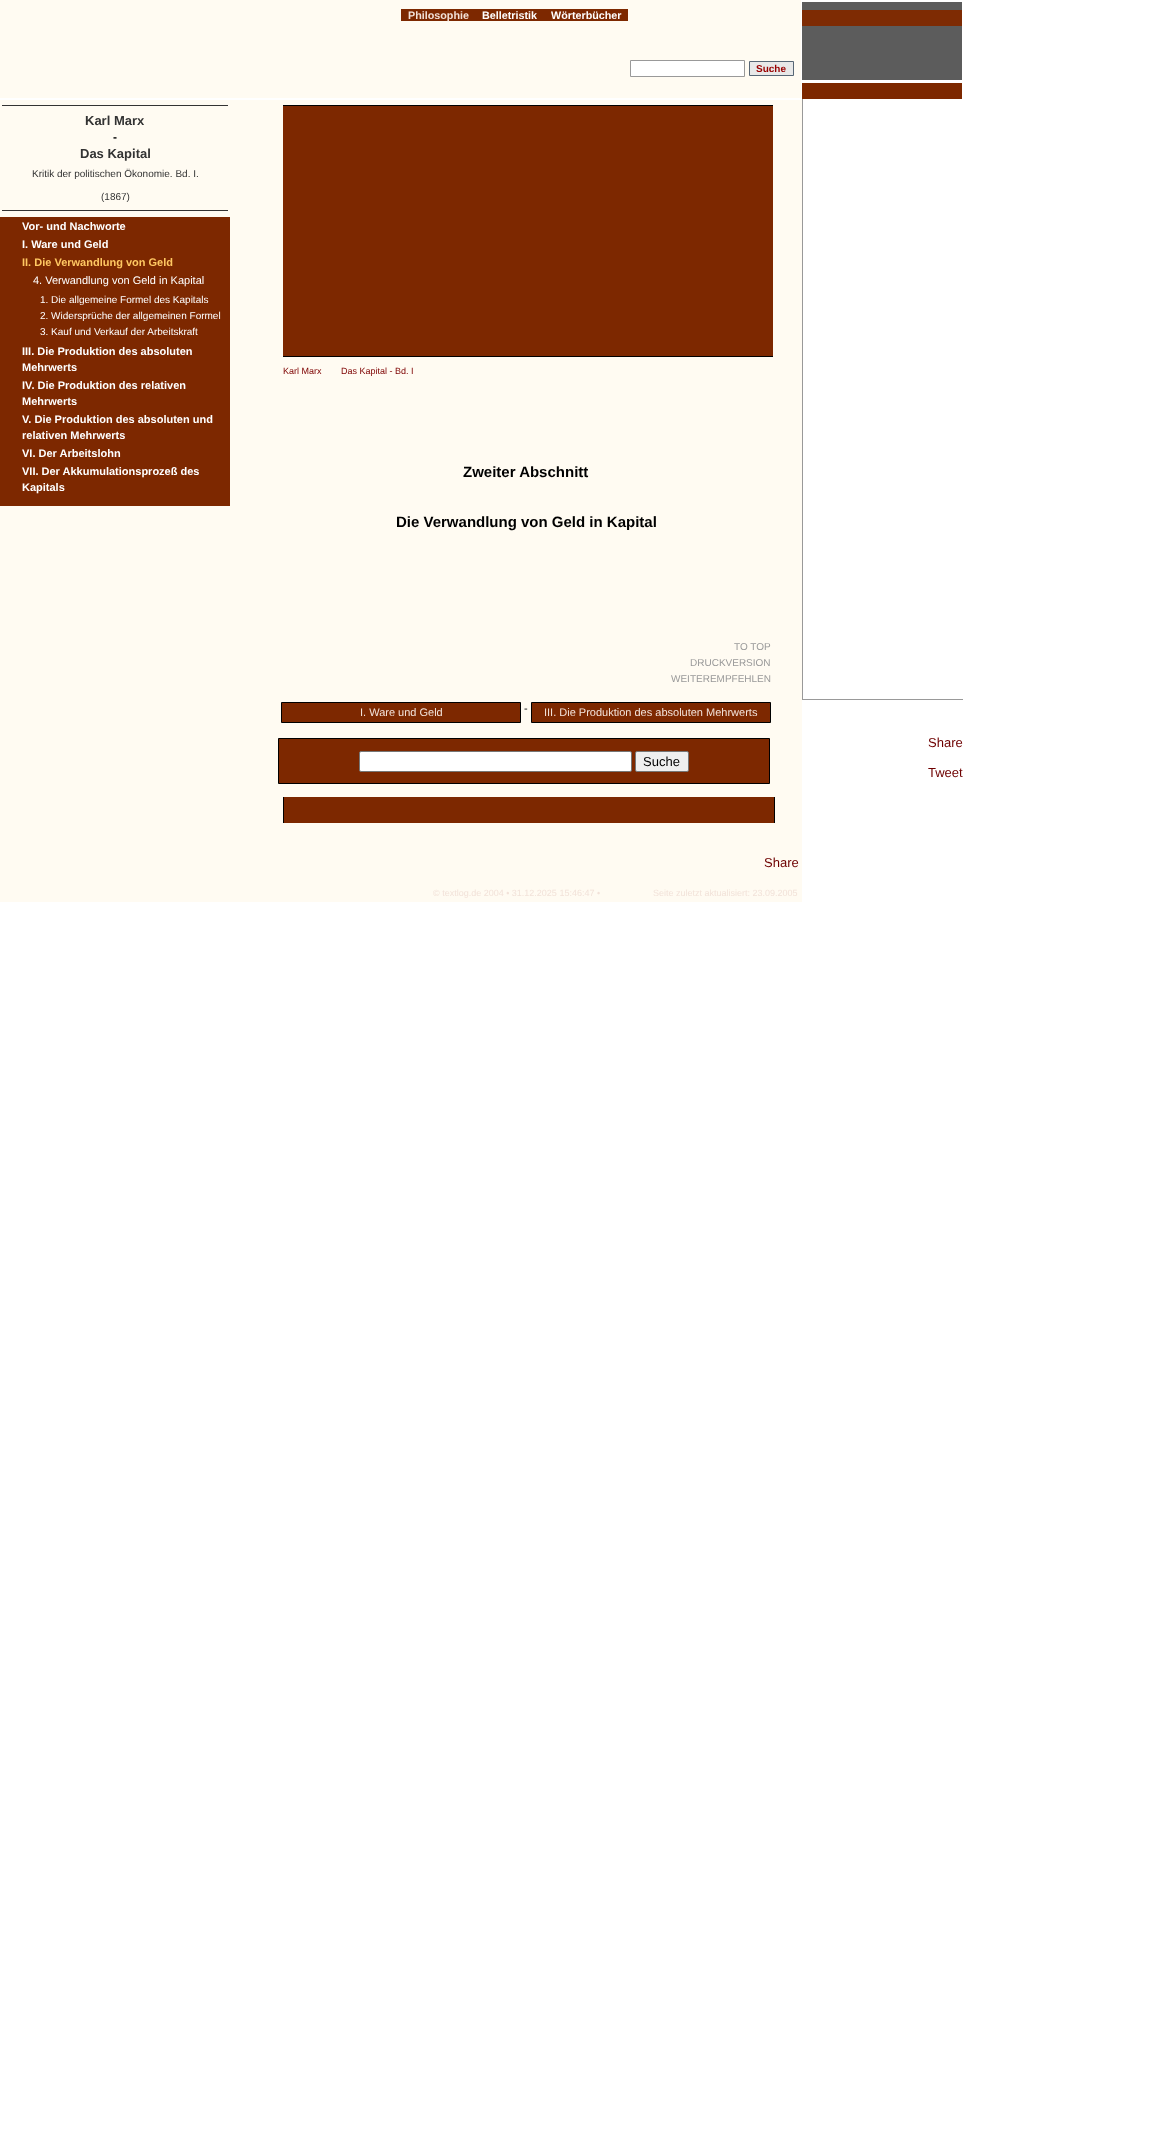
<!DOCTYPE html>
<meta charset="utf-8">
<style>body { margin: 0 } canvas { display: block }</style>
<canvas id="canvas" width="1176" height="2154"></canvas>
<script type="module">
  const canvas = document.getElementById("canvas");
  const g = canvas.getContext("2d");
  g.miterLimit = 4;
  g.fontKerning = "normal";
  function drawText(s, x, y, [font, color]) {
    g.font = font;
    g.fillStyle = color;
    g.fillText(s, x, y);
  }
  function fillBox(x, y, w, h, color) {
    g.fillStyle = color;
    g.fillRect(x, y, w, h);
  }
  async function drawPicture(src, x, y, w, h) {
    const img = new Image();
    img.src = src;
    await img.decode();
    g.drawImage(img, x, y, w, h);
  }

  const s1 = ["bold 10.75px Liberation Sans", "#F2E2D9"];
  const s2 = ["bold 10.75px Liberation Sans", "#FFFFFF"];
  const s3 = ["bold 10px Liberation Sans", "#990000"];
  const s4 = ["bold 13px Liberation Sans", "#333333"];
  const s5 = ["bold 12px Liberation Sans", "#000000"];
  const s6 = ["10px Liberation Sans", "#333333"];
  const s7 = ["bold 11px Liberation Sans", "#FFFFFF"];
  const s8 = ["bold 11px Liberation Sans", "#FFC862"];
  const s9 = ["11px Liberation Sans", "#FFFFFF"];
  const s10 = ["10px Liberation Sans", "#FFFFFF"];
  const s11 = ["9px Liberation Sans", "#7D0000"];
  const s12 = ["bold 15px Liberation Sans", "#000000"];
  const s13 = ["10px Liberation Sans", "#999999"];
  const s14 = ["11px Liberation Sans", "#F2E2D9"];
  const s15 = ["11px Liberation Sans", "#000000"];
  const s16 = ["13px Liberation Sans", "#000000"];
  const s17 = ["13px Liberation Sans", "#6E0000"];
  const s18 = ["9px Liberation Sans", "#F2E2D9"];

  fillBox(0, 0, 1176, 2154, "#FFFFFF");
  fillBox(0, 0, 801, 98, "#FFFBF2");
  fillBox(401, 9, 227, 12, "#7D2800");
  drawText("Philosophie", 408, 19, s1);
  drawText("Belletristik", 482, 19, s2);
  drawText("Wörterbücher", 551, 19, s2);
  g.beginPath();
  g.rect(630.5, 60.5, 114, 16);
  g.fill();
  g.strokeStyle = "#999999";
  g.stroke();
  g.fillStyle = "#E8E8E8";
  g.beginPath();
  g.rect(749.5, 61.5, 44, 14);
  g.fill();
  g.strokeStyle = "#576675";
  g.stroke();
  drawText("Suche", 756, 72, s3);
  fillBox(0, 100, 802, 802, "#FFFBF2");
  fillBox(2, 105, 226, 1, "#333333");
  drawText("Karl Marx", 85, 125, s4);
  drawText("-", 113, 141, s5);
  drawText("Das Kapital", 80, 158, s4);
  drawText("Kritik der politischen Ökonomie. Bd. I.", 32, 177, s6);
  drawText("(1867)", 101, 200, s6);
  fillBox(2, 210, 226, 1, "#333333");
  fillBox(0, 217, 230, 289, "#7D2800");
  drawText("Vor- und Nachworte", 22, 230, s7);
  drawText("I. Ware und Geld", 22, 248, s7);
  drawText("II. Die Verwandlung von Geld", 22, 266, s8);
  drawText("4. Verwandlung von Geld in Kapital", 33, 284, s9);
  drawText("1. Die allgemeine Formel des Kapitals", 40, 303, s10);
  drawText("2. Widersprüche der allgemeinen Formel", 40, 319, s10);
  drawText("3. Kauf und Verkauf der Arbeitskraft", 40, 335, s10);
  drawText("III. Die Produktion des absoluten", 22, 355, s7);
  drawText("Mehrwerts", 22, 371, s7);
  drawText("IV. Die Produktion des relativen", 22, 389, s7);
  drawText("Mehrwerts", 22, 405, s7);
  drawText("V. Die Produktion des absoluten und", 22, 423, s7);
  drawText("relativen Mehrwerts", 22, 439, s7);
  drawText("VI. Der Arbeitslohn", 22, 457, s7);
  drawText("VII. Der Akkumulationsprozeß des", 22, 475, s7);
  drawText("Kapitals", 22, 491, s7);
  fillBox(283, 106, 490, 250, "#7D2800");
  fillBox(283, 105, 490, 1, "#000000");
  fillBox(283, 356, 490, 1, "#000000");
  drawText("Karl Marx", 283, 374, s11);
  drawText("Das Kapital - Bd. I", 341, 374, s11);
  drawText("Zweiter Abschnitt", 463, 477, s12);
  drawText("Die Verwandlung von Geld in Kapital", 396, 527, s12);
  drawText("TO TOP", 734, 650, s13);
  drawText("DRUCKVERSION", 690, 666, s13);
  drawText("WEITEREMPFEHLEN", 671, 682, s13);
  g.fillStyle = "#7D2800";
  g.beginPath();
  g.rect(281.5, 702.5, 239, 20);
  g.fill();
  g.strokeStyle = "#000000";
  g.stroke();
  drawText("I. Ware und Geld", 360, 716, s14);
  drawText("-", 524, 712, s15);
  g.fillStyle = "#7D2800";
  g.beginPath();
  g.rect(531.5, 702.5, 239, 20);
  g.fill();
  g.stroke();
  drawText("III. Die Produktion des absoluten Mehrwerts", 544, 716, s14);
  g.fillStyle = "#7D2800";
  g.beginPath();
  g.rect(278.5, 738.5, 491, 45);
  g.fill();
  g.stroke();
  g.fillStyle = "#FFFFFF";
  g.beginPath();
  g.roundRect(359.5, 751.5, 272, 20, 1.5);
  g.fill();
  g.strokeStyle = "#767676";
  g.stroke();
  g.fillStyle = "#EFEFEF";
  g.beginPath();
  g.roundRect(635.5, 751.5, 53, 20, 1.5);
  g.fill();
  g.stroke();
  drawText("Suche", 643, 766, s16);
  fillBox(284, 797, 490, 26, "#7D2800");
  fillBox(774, 797, 1, 26, "#000000");
  fillBox(283, 797, 1, 26, "#000000");
  drawText("Share", 764, 867, s17);
  drawText("© textlog.de 2004 • 31.12.2025 15:46:47 •", 433, 896, s18);
  drawText("Seite zuletzt aktualisiert: 23.09.2005", 653, 896, s18);
  await drawPicture("pic1.png", 802, 2, 160, 78);
  fillBox(802, 83, 160, 16, "#7D2800");
  fillBox(802, 699, 161, 1, "#999999");
  fillBox(802, 99, 1, 601, "#999999");
  drawText("Share", 928, 747, s17);
  drawText("Tweet", 928, 777, s17);
</script>
